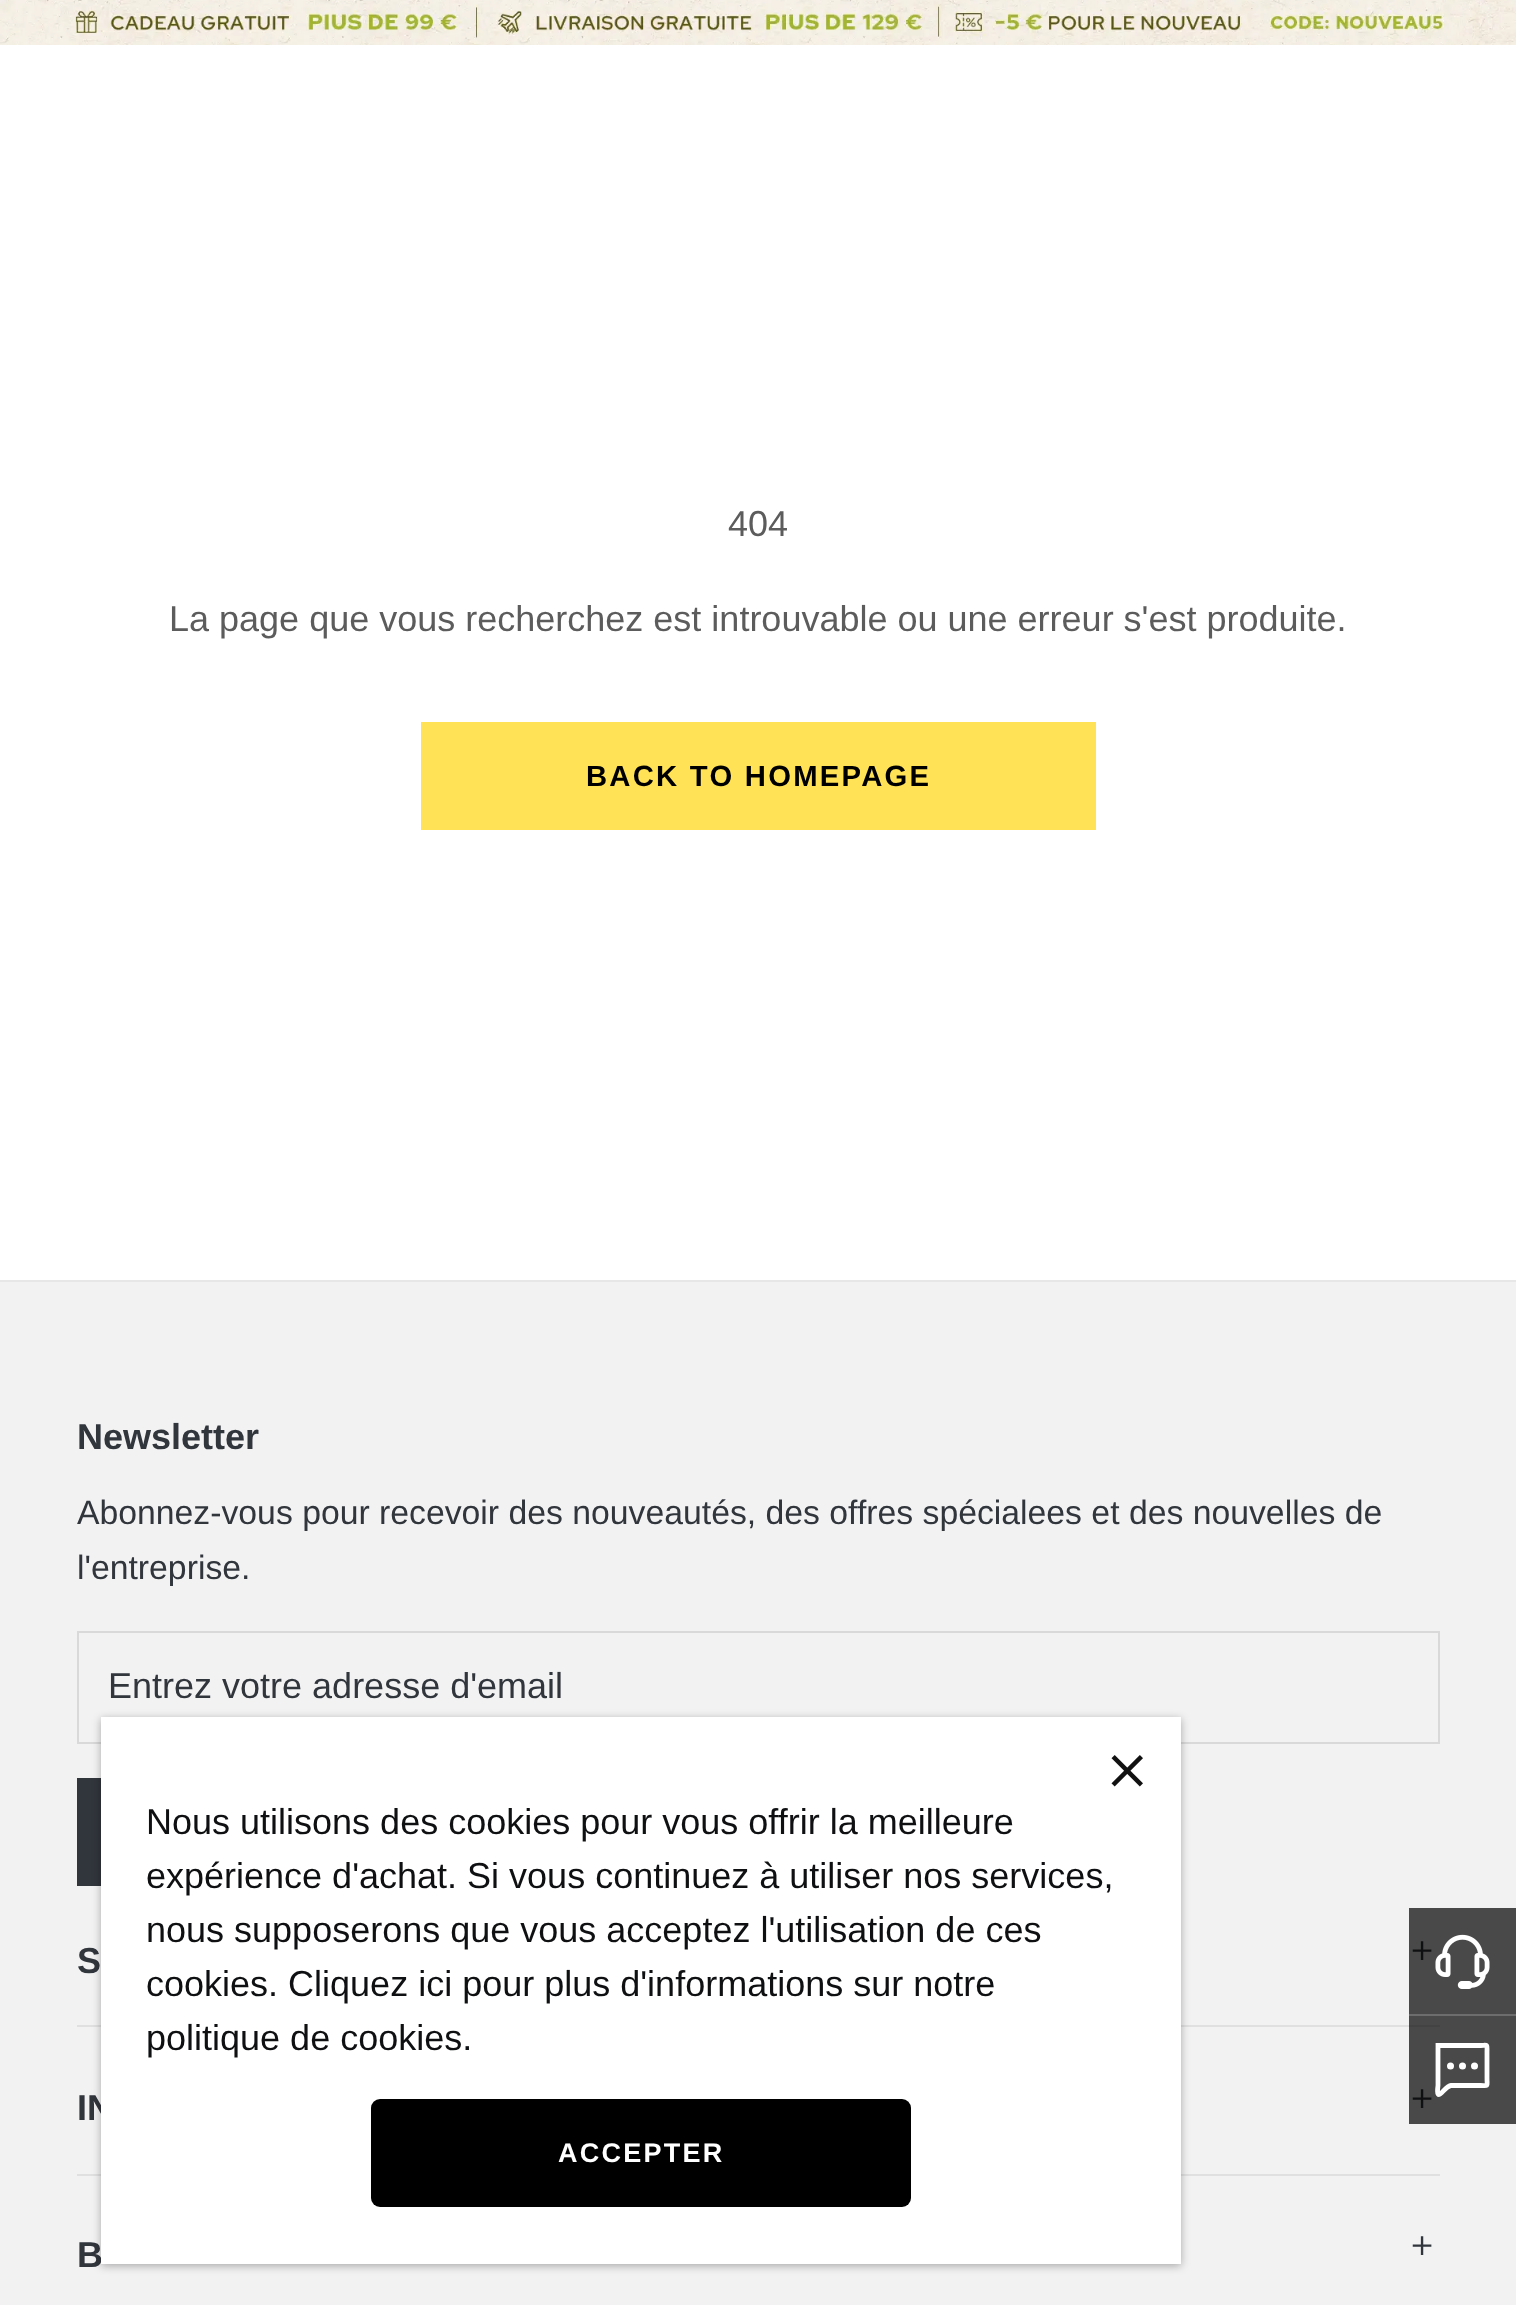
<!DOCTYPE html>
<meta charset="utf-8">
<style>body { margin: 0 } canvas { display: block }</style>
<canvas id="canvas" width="1516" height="2305"></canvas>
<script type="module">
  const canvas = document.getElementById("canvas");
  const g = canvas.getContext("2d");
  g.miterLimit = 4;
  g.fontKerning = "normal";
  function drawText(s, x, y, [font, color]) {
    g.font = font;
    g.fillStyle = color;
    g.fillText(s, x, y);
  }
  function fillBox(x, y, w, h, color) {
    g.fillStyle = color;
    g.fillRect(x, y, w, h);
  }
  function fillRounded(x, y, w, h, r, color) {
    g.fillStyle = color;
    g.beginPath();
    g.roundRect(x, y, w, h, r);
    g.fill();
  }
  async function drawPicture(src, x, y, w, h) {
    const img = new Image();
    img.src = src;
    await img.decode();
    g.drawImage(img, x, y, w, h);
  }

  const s1 = ["36px Liberation Sans", "#5C5C5C"];
  const s2 = ["bold 29.25px Liberation Sans", "#000000"];
  const s3 = ["bold 36px Liberation Sans", "#31353C"];
  const s4 = ["33.75px Liberation Sans", "#31353C"];
  const s5 = ["36px Liberation Sans", "#31353C"];
  const s6 = ["500 36px WenQuanYi Zen Hei", "#0F1012"];
  const s7 = ["500 36px WenQuanYi Zen Hei", "#31353C"];
  const s8 = ["36px Liberation Sans", "#0F1012"];
  const s9 = ["bold 27px Liberation Sans", "#FFFFFF"];

  fillBox(0, 0, 1516, 2305, "#FFFFFF");
  await drawPicture("pic1.png", 0, 0, 1516, 45);
  drawText("404", 728, 536, s1);
  drawText("La page que vous recherchez est introuvable ou une erreur s'est produite.", 169, 631, s1);
  fillBox(421, 722, 675, 108, "#FFE256");
  g.letterSpacing = "2.25px";
  drawText("BACK TO HOMEPAGE", 586, 786, s2);
  fillBox(0, 1282, 1516, 1023, "#F2F2F3");
  fillBox(1409, 2016, 107, 108, "#494949");
  fillBox(1409, 1908, 107, 106, "#494949");
  fillBox(0, 1280, 1516, 2, "#E7E7E7");
  g.letterSpacing = "0px";
  drawText("Newsletter", 77, 1449, s3);
  drawText("Abonnez-vous pour recevoir des nouveautés, des offres spécialees et des nouvelles de", 77, 1524, s4);
  drawText("l'entreprise.", 77, 1579, s4);
  g.strokeStyle = "#D9D9D9";
  g.lineWidth = 2;
  g.strokeRect(78, 1632, 1361, 111);
  drawText("Entrez votre adresse d'email", 108, 1698, s5);
  fillBox(77, 1778, 24, 108, "#31353C");
  fillBox(77, 2025, 1332, 2, "#E0E0E0");
  fillBox(1409, 2025, 31, 2, "#434343");
  drawText("S", 77, 1973, s3);
  drawText("＋", 1404, 1961, s6);
  fillBox(77, 2174, 1363, 2, "#E0E0E0");
  drawText("IN", 77, 2120, s3);
  drawText("＋", 1404, 2109, s6);
  drawText("B", 77, 2267, s3);
  drawText("＋", 1404, 2256, s7);
  fillBox(1409, 2014, 107, 2, "#6D6D6D");
  await drawPicture("pic2.png", 1435, 1934, 55, 55);
  g.beginPath();
  g.moveTo(1438.5, 2045.5);
  g.lineTo(1478.5, 2045.5);
  g.bezierCurveTo(1488.5, 2045.5, 1487, 2043, 1487, 2052.5);
  g.lineTo(1487, 2078.5);
  g.bezierCurveTo(1487, 2087, 1489, 2085.5, 1480.5, 2085.5);
  g.lineTo(1451, 2085.5);
  g.bezierCurveTo(1446.5, 2086, 1441.5, 2094, 1439, 2094.5);
  g.bezierCurveTo(1436.5, 2094.5, 1438, 2086, 1438, 2085.5);
  g.lineTo(1438, 2045.5);
  g.closePath();
  g.strokeStyle = "#FFFFFF";
  g.lineWidth = 4.8;
  g.stroke();
  g.fillStyle = "#FFFFFF";
  g.beginPath();
  g.arc(1450.5, 2066, 3.5, 0, Math.PI * 2);
  g.fill();
  g.beginPath();
  g.arc(1462.5, 2066, 3.5, 0, Math.PI * 2);
  g.fill();
  g.beginPath();
  g.arc(1474.5, 2066, 3.5, 0, Math.PI * 2);
  g.fill();
  g.fillStyle = "rgba(0, 0, 0, 0.3)";
  g.filter = "blur(4.5px)";
  g.beginPath();
  g.rect(101, 1719, 1080, 547);
  g.fill();
  g.filter = "none";
  fillBox(101, 1717, 1080, 547, "#FFFFFF");
  await drawPicture("pic3.png", 1111, 1755, 32, 32);
  drawText("Nous utilisons des cookies pour vous offrir la meilleure", 146, 1834, s8);
  drawText("expérience d'achat. Si vous continuez à utiliser nos services,", 146, 1888, s8);
  drawText("nous supposerons que vous acceptez l'utilisation de ces", 146, 1942, s8);
  drawText("cookies. Cliquez ici pour plus d'informations sur notre", 146, 1996, s8);
  drawText("politique de cookies.", 146, 2050, s8);
  fillRounded(371, 2099, 540, 108, 9, "#000000");
  g.letterSpacing = "2.25px";
  drawText("ACCEPTER", 558, 2162, s9);
</script>
